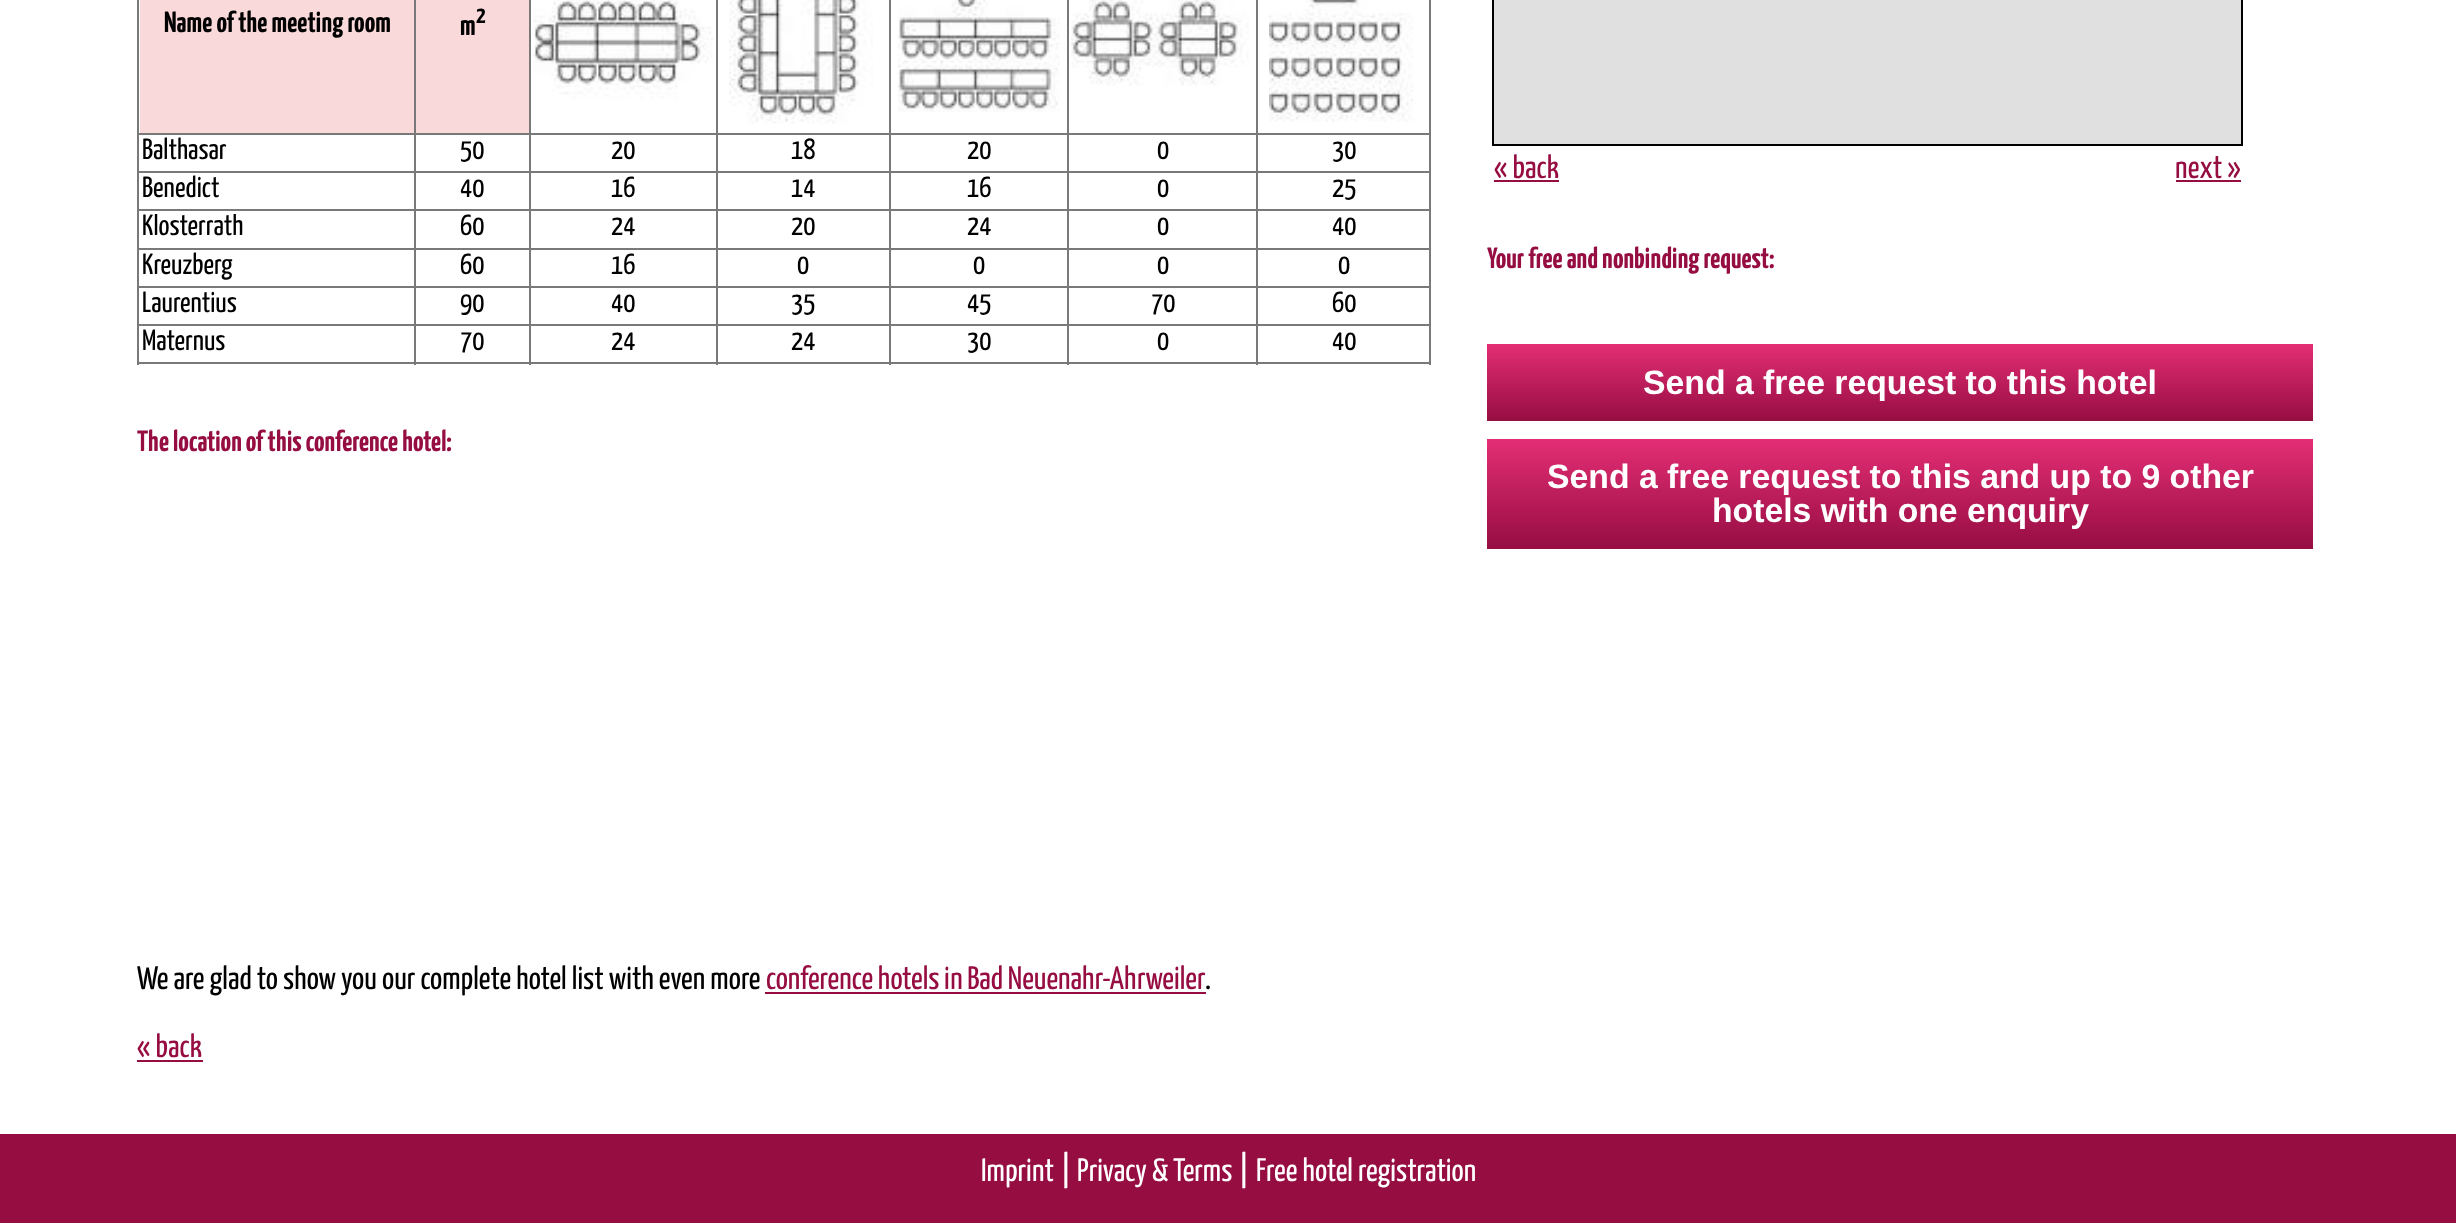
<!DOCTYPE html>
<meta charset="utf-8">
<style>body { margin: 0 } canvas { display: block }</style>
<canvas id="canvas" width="2456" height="1223"></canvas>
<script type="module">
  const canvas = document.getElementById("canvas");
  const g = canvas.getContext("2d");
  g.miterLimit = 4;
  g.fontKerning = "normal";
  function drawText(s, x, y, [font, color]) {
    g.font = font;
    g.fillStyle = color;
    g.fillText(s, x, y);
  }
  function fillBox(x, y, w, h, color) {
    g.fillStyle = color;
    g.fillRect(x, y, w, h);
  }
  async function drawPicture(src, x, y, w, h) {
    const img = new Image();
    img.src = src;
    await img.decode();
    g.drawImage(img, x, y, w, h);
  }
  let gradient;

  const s1 = ["bold 29.25px Yanone Kaffeesatz", "#000000"];
  const s2 = ["bold 24px Yanone Kaffeesatz", "#000000"];
  const s3 = ["29.25px Yanone Kaffeesatz", "#000000"];
  const s4 = ["bold 29.25px Yanone Kaffeesatz", "#960D42"];
  const s5 = ["32.4px Yanone Kaffeesatz", "#000000"];
  const s6 = ["32.4px Yanone Kaffeesatz", "#960D42"];
  const s7 = ["bold 33.75px Liberation Sans", "#FFFFFF"];
  const s8 = ["32.4px Yanone Kaffeesatz", "#FFFFFF"];
  const s9 = ["36px Yanone Kaffeesatz", "#FFFFFF"];

  fillBox(0, 0, 2456, 1223, "#FFFFFF");
  fillBox(1429, 0, 2, 365, "#797979");
  fillBox(137, 362, 1294, 2, "#797979");
  fillBox(137, 0, 2, 365, "#797979");
  fillBox(140, 0, 274, 133, "#F9D9D9");
  drawText("Name of the meeting room", 164, 32, s1);
  fillBox(416, 0, 113, 133, "#F9D9D9");
  fillBox(1256, 133, 175, 2, "#797979");
  fillBox(1256, 171, 175, 2, "#797979");
  fillBox(1256, 209, 175, 2, "#797979");
  fillBox(1256, 248, 175, 2, "#797979");
  fillBox(1256, 286, 175, 2, "#797979");
  fillBox(1256, 324, 175, 2, "#797979");
  fillBox(1256, 324, 2, 41, "#797979");
  fillBox(1067, 324, 191, 2, "#797979");
  fillBox(1256, 286, 2, 40, "#797979");
  fillBox(1067, 286, 191, 2, "#797979");
  fillBox(1256, 248, 2, 40, "#797979");
  fillBox(1067, 248, 191, 2, "#797979");
  fillBox(1256, 209, 2, 41, "#797979");
  fillBox(1067, 209, 191, 2, "#797979");
  fillBox(1256, 171, 2, 41, "#797979");
  fillBox(1067, 171, 191, 2, "#797979");
  fillBox(1256, 133, 2, 40, "#797979");
  fillBox(1067, 133, 191, 2, "#797979");
  fillBox(1067, 324, 2, 41, "#797979");
  fillBox(889, 324, 180, 2, "#797979");
  fillBox(1067, 286, 2, 40, "#797979");
  fillBox(889, 286, 180, 2, "#797979");
  fillBox(1067, 248, 2, 40, "#797979");
  fillBox(889, 248, 180, 2, "#797979");
  fillBox(1067, 209, 2, 41, "#797979");
  fillBox(889, 209, 180, 2, "#797979");
  fillBox(1067, 171, 2, 41, "#797979");
  fillBox(889, 171, 180, 2, "#797979");
  fillBox(1067, 133, 2, 40, "#797979");
  fillBox(889, 133, 180, 2, "#797979");
  fillBox(889, 324, 2, 41, "#797979");
  fillBox(716, 324, 175, 2, "#797979");
  fillBox(889, 286, 2, 40, "#797979");
  fillBox(716, 286, 175, 2, "#797979");
  fillBox(889, 248, 2, 40, "#797979");
  fillBox(716, 248, 175, 2, "#797979");
  fillBox(889, 209, 2, 41, "#797979");
  fillBox(716, 209, 175, 2, "#797979");
  fillBox(889, 171, 2, 41, "#797979");
  fillBox(716, 171, 175, 2, "#797979");
  fillBox(889, 133, 2, 40, "#797979");
  fillBox(716, 133, 175, 2, "#797979");
  fillBox(716, 324, 2, 41, "#797979");
  fillBox(529, 324, 189, 2, "#797979");
  fillBox(716, 286, 2, 40, "#797979");
  fillBox(529, 286, 189, 2, "#797979");
  fillBox(716, 248, 2, 40, "#797979");
  fillBox(529, 248, 189, 2, "#797979");
  fillBox(716, 209, 2, 41, "#797979");
  fillBox(529, 209, 189, 2, "#797979");
  fillBox(716, 171, 2, 41, "#797979");
  fillBox(529, 171, 189, 2, "#797979");
  fillBox(716, 133, 2, 40, "#797979");
  fillBox(529, 133, 189, 2, "#797979");
  fillBox(529, 324, 2, 41, "#797979");
  fillBox(414, 324, 117, 2, "#797979");
  fillBox(529, 286, 2, 40, "#797979");
  fillBox(414, 286, 117, 2, "#797979");
  fillBox(529, 248, 2, 40, "#797979");
  fillBox(414, 248, 117, 2, "#797979");
  fillBox(529, 209, 2, 41, "#797979");
  fillBox(414, 209, 117, 2, "#797979");
  fillBox(529, 171, 2, 41, "#797979");
  fillBox(414, 171, 117, 2, "#797979");
  fillBox(529, 133, 2, 40, "#797979");
  fillBox(414, 133, 117, 2, "#797979");
  fillBox(414, 324, 2, 41, "#797979");
  fillBox(137, 324, 279, 2, "#797979");
  fillBox(414, 286, 2, 40, "#797979");
  fillBox(137, 286, 279, 2, "#797979");
  fillBox(414, 248, 2, 40, "#797979");
  fillBox(137, 248, 279, 2, "#797979");
  fillBox(414, 209, 2, 41, "#797979");
  fillBox(137, 209, 279, 2, "#797979");
  fillBox(414, 171, 2, 41, "#797979");
  fillBox(137, 171, 279, 2, "#797979");
  fillBox(414, 133, 2, 40, "#797979");
  fillBox(137, 133, 279, 2, "#797979");
  fillBox(414, 0, 2, 135, "#797979");
  drawText("2", 476, 23, s2);
  drawText("m", 460, 35, s1);
  fillBox(529, 0, 2, 135, "#797979");
  await drawPicture("pic1.png", 533, 0, 180, 99);
  fillBox(716, 0, 2, 135, "#797979");
  await drawPicture("pic2.png", 729, 0, 144, 124);
  fillBox(889, 0, 2, 135, "#797979");
  await drawPicture("pic3.png", 897, 0, 163, 112);
  fillBox(1067, 0, 2, 135, "#797979");
  await drawPicture("pic4.png", 1071, 0, 178, 86);
  fillBox(1256, 0, 2, 135, "#797979");
  await drawPicture("pic5.png", 1269, 0, 145, 122);
  drawText("Balthasar", 142, 159, s3);
  drawText("50", 460, 159, s3);
  drawText("20", 611, 159, s3);
  drawText("18", 791, 159, s3);
  drawText("20", 967, 159, s3);
  drawText("0", 1157, 159, s3);
  drawText("30", 1332, 159, s3);
  drawText("Benedict", 142, 197, s3);
  drawText("40", 460, 197, s3);
  drawText("16", 611, 197, s3);
  drawText("14", 791, 197, s3);
  drawText("16", 967, 197, s3);
  drawText("0", 1157, 197, s3);
  drawText("25", 1332, 197, s3);
  g.save();
  g.beginPath();
  g.rect(142, 214, 270, 31);
  g.clip();
  drawText("Klosterrath", 142, 235, s3);
  g.restore();
  drawText("60", 460, 235, s3);
  drawText("24", 611, 235, s3);
  drawText("20", 791, 235, s3);
  drawText("24", 967, 235, s3);
  drawText("0", 1157, 235, s3);
  drawText("40", 1332, 235, s3);
  drawText("Kreuzberg", 142, 274, s3);
  drawText("60", 460, 274, s3);
  drawText("16", 611, 274, s3);
  drawText("0", 797, 274, s3);
  drawText("0", 973, 274, s3);
  drawText("0", 1157, 274, s3);
  drawText("0", 1338, 274, s3);
  drawText("Laurentius", 142, 312, s3);
  drawText("90", 460, 312, s3);
  drawText("40", 611, 312, s3);
  drawText("35", 791, 312, s3);
  drawText("45", 967, 312, s3);
  drawText("70", 1151, 312, s3);
  drawText("60", 1332, 312, s3);
  drawText("Maternus", 142, 350, s3);
  drawText("70", 460, 350, s3);
  drawText("24", 611, 350, s3);
  drawText("24", 791, 350, s3);
  drawText("30", 967, 350, s3);
  drawText("0", 1157, 350, s3);
  drawText("40", 1332, 350, s3);
  drawText("The location of this conference hotel:", 137, 451, s4);
  drawText("We are glad to show you our complete hotel list with even more", 137, 989, s5);
  g.wordSpacing = "-0.5px";
  drawText("conference hotels in Bad Neuenahr-Ahrweiler", 766, 989, s6);
  fillBox(765, 992, 441, 2, "#960D42");
  g.wordSpacing = "0px";
  drawText(".", 1205, 989, s5);
  drawText("« back", 137, 1057, s6);
  fillBox(137, 1060, 66, 2, "#960D42");
  g.fillStyle = "#E0E0E0";
  g.beginPath();
  g.rect(1493, -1, 749, 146);
  g.fill();
  g.strokeStyle = "#000000";
  g.lineWidth = 2;
  g.stroke();
  drawText("« back", 1494, 178, s6);
  fillBox(1494, 180, 65, 2, "#960D42");
  drawText("next »", 2175, 178, s6);
  fillBox(2176, 180, 65, 2, "#960D42");
  drawText("Your free and nonbinding request:", 1487, 268, s4);
  gradient = g.createLinearGradient(1900, 344, 1900, 421);
  gradient.addColorStop(0, "#E42E75");
  gradient.addColorStop(1, "#960D42");
  g.fillStyle = gradient;
  g.fillRect(1487, 344, 826, 77);
  drawText("Send a free request to this hotel", 1643, 394, s7);
  gradient = g.createLinearGradient(1900, 439, 1900, 549);
  gradient.addColorStop(0, "#E42E75");
  gradient.addColorStop(1, "#960D42");
  g.fillStyle = gradient;
  g.fillRect(1487, 439, 826, 110);
  drawText("Send a free request to this and up to 9 other", 1547, 488, s7);
  drawText("hotels with one enquiry", 1712, 522, s7);
  fillBox(0, 1134, 2456, 89, "#960D42");
  drawText("Imprint", 981, 1181, s8);
  drawText("|", 1060, 1181, s9);
  drawText("Privacy & Terms", 1077, 1181, s8);
  drawText("|", 1238, 1181, s9);
  drawText("Free hotel registration", 1256, 1181, s8);
</script>
